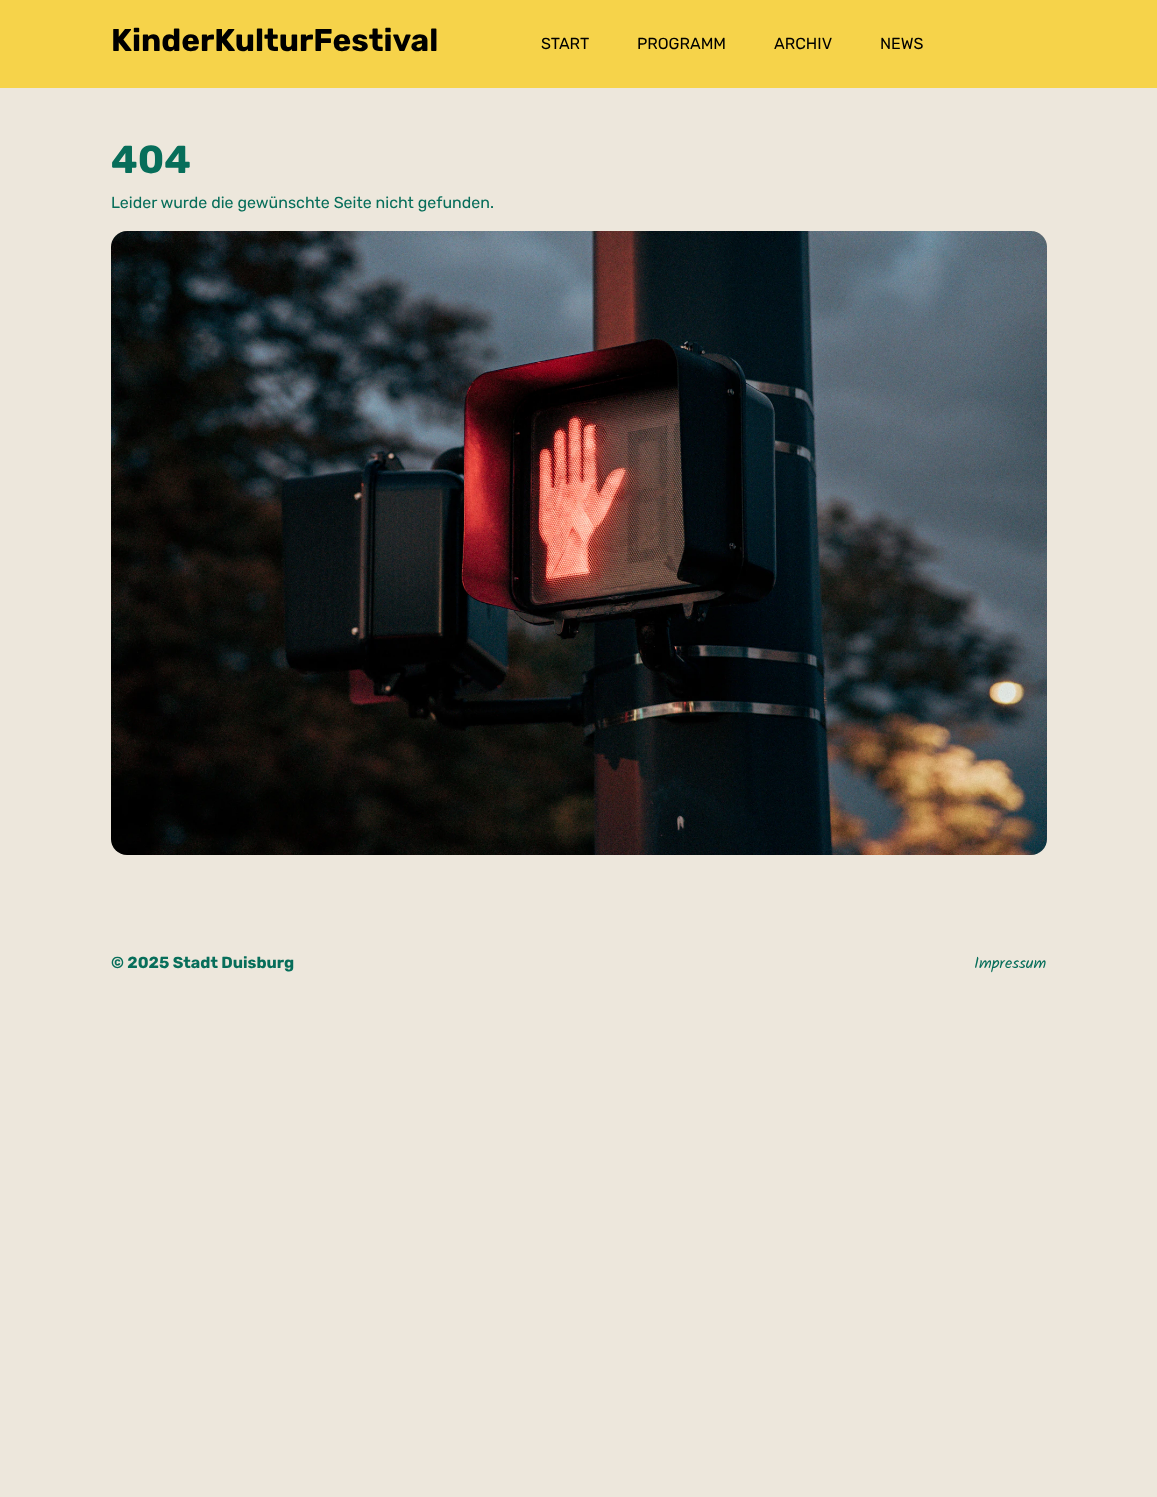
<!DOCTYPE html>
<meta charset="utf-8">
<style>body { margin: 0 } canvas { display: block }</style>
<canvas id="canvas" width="1157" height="1497"></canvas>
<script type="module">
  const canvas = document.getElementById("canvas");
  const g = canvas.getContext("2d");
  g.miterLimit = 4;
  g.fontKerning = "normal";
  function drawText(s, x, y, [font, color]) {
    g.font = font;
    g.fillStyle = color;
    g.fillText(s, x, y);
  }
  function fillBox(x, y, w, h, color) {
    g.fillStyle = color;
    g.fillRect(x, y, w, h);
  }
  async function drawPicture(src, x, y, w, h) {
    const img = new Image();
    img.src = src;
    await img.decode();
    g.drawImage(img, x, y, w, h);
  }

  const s1 = ["300 31.6px Rubik", "#000000"];
  const s2 = ["300 16px 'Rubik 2'", "#000000"];
  const s3 = ["300 39px Rubik", "#076E5A"];
  const s4 = ["300 16px 'Rubik 2'", "#076E5A"];
  const s5 = ["300 16px Rubik", "#076E5A"];
  const s6 = ["16px Solitreo", "#076E5A"];

  fillBox(0, 0, 1157, 1497, "#EDE7DC");
  fillBox(0, 0, 1157, 88, "#F6D34A");
  drawText("KinderKulturFestival", 111, 51, s1);
  drawText("START", 541, 49, s2);
  drawText("PROGRAMM", 637, 49, s2);
  drawText("ARCHIV", 774, 49, s2);
  drawText("NEWS", 880, 49, s2);
  drawText("404", 111, 173, s3);
  drawText("Leider wurde die gewünschte Seite nicht gefunden.", 111, 208, s4);
  await drawPicture("pic1.png", 111, 231, 936, 624);
  drawText("© 2025 Stadt Duisburg", 111, 968, s5);
  drawText("Impressum", 974, 968, s6);
</script>
